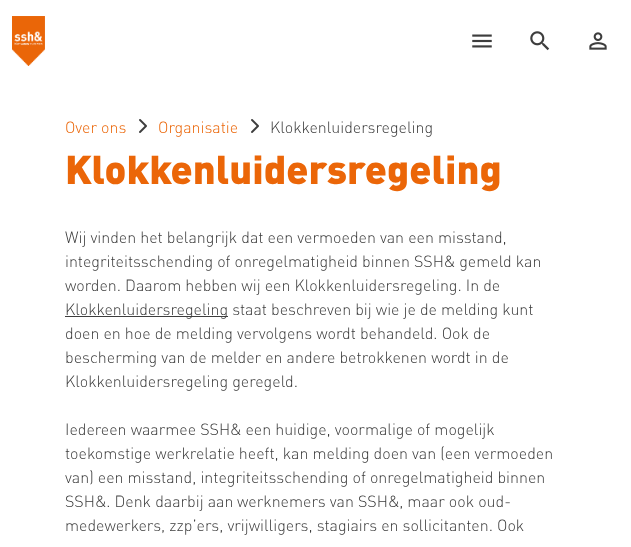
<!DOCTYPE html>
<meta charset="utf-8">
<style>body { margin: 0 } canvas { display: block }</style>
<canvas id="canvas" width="631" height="547"></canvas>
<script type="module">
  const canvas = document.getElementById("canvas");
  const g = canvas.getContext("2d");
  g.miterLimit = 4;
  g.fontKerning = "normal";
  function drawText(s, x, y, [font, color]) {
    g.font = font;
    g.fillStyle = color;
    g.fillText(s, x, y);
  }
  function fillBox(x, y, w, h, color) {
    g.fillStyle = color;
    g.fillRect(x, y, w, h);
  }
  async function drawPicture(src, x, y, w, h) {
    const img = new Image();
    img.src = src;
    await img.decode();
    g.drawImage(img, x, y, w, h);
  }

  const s1 = ["300 16px DIN", "#EB6608"];
  const s2 = ["300 16px DIN", "#3D3D3D"];
  const s3 = ["900 39.75px DIN", "#EB6608"];

  fillBox(0, 0, 631, 547, "#FFFFFF");
  await drawPicture("pic1.png", 12, 16, 33, 50);
  await drawPicture("pic2.png", 472, 34, 20, 14);
  await drawPicture("pic3.png", 530, 31, 20, 20);
  await drawPicture("pic4.png", 589, 32, 18, 18);
  drawText("Over ons", 65, 133, s1);
  await drawPicture("pic5.png", 139, 119, 8, 14);
  drawText("Organisatie", 158, 133, s1);
  await drawPicture("pic5.png", 251, 119, 8, 14);
  drawText("Klokkenluidersregeling", 270, 133, s2);
  drawText("Klokkenluidersregeling", 65, 184, s3);
  drawText("Wij vinden het belangrijk dat een vermoeden van een misstand,", 65, 243, s2);
  drawText("integriteitsschending of onregelmatigheid binnen SSH& gemeld kan", 65, 267, s2);
  drawText("worden. Daarom hebben wij een Klokkenluidersregeling. In de", 65, 291, s2);
  fillBox(65, 316, 163, 1, "#3D3D3D");
  drawText("Klokkenluidersregeling staat beschreven bij wie je de melding kunt", 65, 315, s2);
  drawText("doen en hoe de melding vervolgens wordt behandeld. Ook de", 65, 339, s2);
  drawText("bescherming van de melder en andere betrokkenen wordt in de", 65, 363, s2);
  drawText("Klokkenluidersregeling geregeld.", 65, 387, s2);
  drawText("Iedereen waarmee SSH& een huidige, voormalige of mogelijk", 65, 435, s2);
  drawText("toekomstige werkrelatie heeft, kan melding doen van (een vermoeden", 65, 459, s2);
  drawText("van) een misstand, integriteitsschending of onregelmatigheid binnen", 65, 483, s2);
  drawText("SSH&. Denk daarbij aan", 65, 507, s2);
  drawText("werknemers van SSH&, maar ook oud-", 237, 507, s2);
  drawText("medewerkers, zzp’ers, vrijwilligers, stagiairs en sollicitanten. Ook", 65, 531, s2);
</script>
